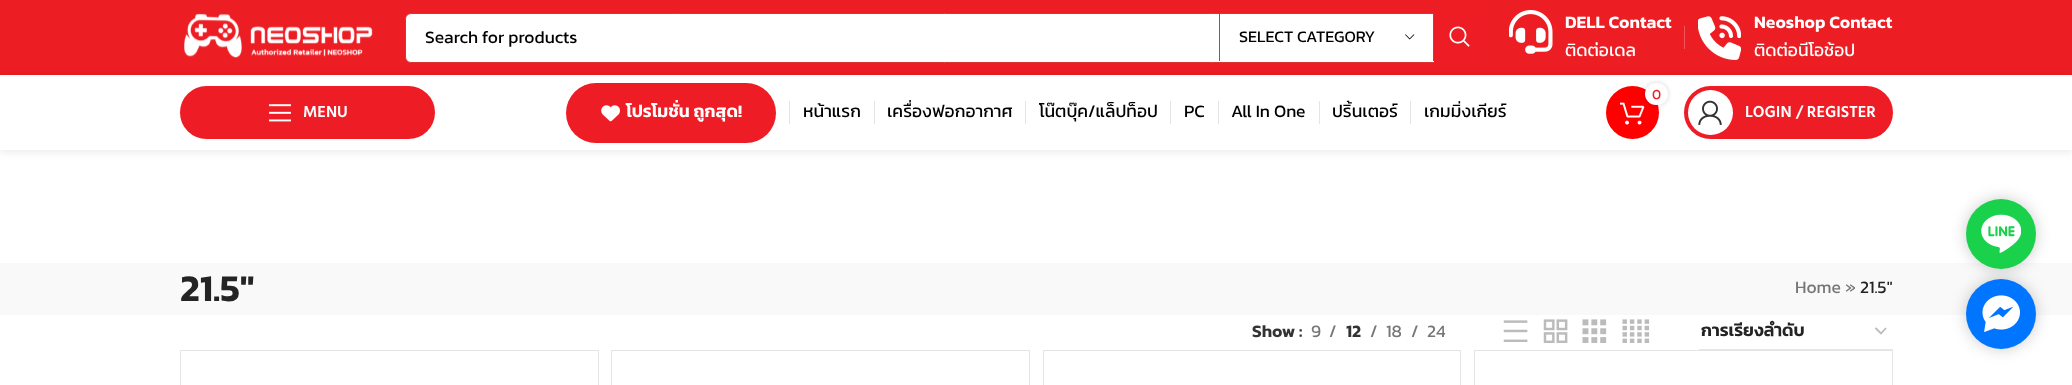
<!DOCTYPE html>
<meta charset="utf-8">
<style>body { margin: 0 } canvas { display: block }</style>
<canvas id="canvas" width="2072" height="385"></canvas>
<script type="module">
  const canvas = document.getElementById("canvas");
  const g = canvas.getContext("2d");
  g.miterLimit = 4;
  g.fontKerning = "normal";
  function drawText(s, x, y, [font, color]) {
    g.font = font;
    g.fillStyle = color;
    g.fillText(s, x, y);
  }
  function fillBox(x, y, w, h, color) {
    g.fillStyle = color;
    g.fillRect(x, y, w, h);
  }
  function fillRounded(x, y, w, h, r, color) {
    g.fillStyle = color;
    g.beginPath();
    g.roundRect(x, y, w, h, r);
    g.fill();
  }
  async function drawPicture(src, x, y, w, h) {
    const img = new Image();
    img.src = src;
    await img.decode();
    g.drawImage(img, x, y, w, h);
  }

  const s1 = ["17.5px Kanit", "#000000"];
  const s2 = ["16.25px Kanit", "#000000"];
  const s3 = ["600 17.5px Kanit", "#FFFFFF"];
  const s4 = ["17.5px Kanit", "#FFFFFF"];
  const s5 = ["600 16.25px Hind", "#FFFFFF"];
  const s6 = ["14px Kanit", "#EE1C25"];
  const s7 = ["600 38px Kanit", "#242424"];
  const s8 = ["17.5px Kanit", "#767676"];
  const s9 = ["17.5px Kanit", "#242424"];
  const s10 = ["600 17.5px Kanit", "#333333"];
  const s11 = ["600 17.5px Kanit", "#242424"];

  fillBox(0, 0, 2072, 385, "#FFFFFF");
  fillBox(0, 0, 2072, 75, "#ED1D24");
  await drawPicture("pic1.png", 184, 13, 189, 45);
  g.save();
  g.beginPath();
  g.moveTo(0, 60);
  g.lineTo(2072, 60);
  g.lineTo(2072, 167);
  g.lineTo(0, 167);
  g.closePath();
  g.moveTo(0, 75);
  g.lineTo(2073, 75);
  g.lineTo(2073, 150);
  g.lineTo(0, 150);
  g.closePath();
  g.clip("evenodd");
  g.fillStyle = "rgba(0, 0, 0, 0.1)";
  g.filter = "blur(5px)";
  g.beginPath();
  g.rect(0, 76, 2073, 75);
  g.fill();
  g.filter = "none";
  g.restore();
  g.fillStyle = "#FFFFFF";
  g.beginPath();
  g.roundRect(405.5, 13.5, 1078, 49, 5.5);
  g.fill();
  g.strokeStyle = "#DD3333";
  g.stroke();
  drawText("Search for products", 425, 43, s1);
  fillBox(1433, 14, 1, 47, "#DD3333");
  fillBox(1219, 14, 1, 47, "#DD3333");
  drawText("SELECT CATEGORY", 1239, 42, s2);
  await drawPicture("pic2.png", 1405, 34, 10, 6);
  g.fillStyle = "#EE1C25";
  g.beginPath();
  g.roundRect(1434, 13, 50, 50, [0, 6, 6, 0]);
  g.fill();
  await drawPicture("pic3.png", 1449, 26, 21, 21);
  await drawPicture("pic4.png", 1509, 10, 44, 44);
  drawText("DELL Contact", 1565, 28, s3);
  drawText("ติดต่อเดล", 1565, 56, s4);
  fillBox(1684, 26, 1, 23, "#F2565B");
  await drawPicture("pic5.png", 1698, 16, 43, 44);
  drawText("Neoshop Contact", 1754, 28, s3);
  drawText("ติดต่อนีโอช้อป", 1754, 56, s4);
  fillRounded(180, 86, 255, 53, 26.5, "#EE1C25");
  await drawPicture("pic6.png", 269, 104, 22, 18);
  drawText("MENU", 303, 117, s5);
  fillRounded(566, 83, 210, 60, 30, "#EE1C25");
  await drawPicture("pic7.png", 601, 105, 19, 17);
  drawText("โปรโมชั่น ถูกสุด!", 626, 117, s3);
  fillBox(789, 101, 1, 23, "#E4E4E4");
  drawText("หน้าแรก", 803, 117, s1);
  fillBox(874, 101, 1, 23, "#E4E4E4");
  drawText("เครื่องฟอกอากาศ", 887, 117, s1);
  fillBox(1025, 101, 1, 23, "#E4E4E4");
  drawText("โน๊ตบุ๊ค/แล็ปท็อป", 1039, 117, s1);
  fillBox(1170, 101, 1, 23, "#E4E4E4");
  drawText("PC", 1184, 117, s1);
  fillBox(1218, 101, 1, 23, "#E4E4E4");
  drawText("All In One", 1231, 117, s1);
  fillBox(1319, 101, 1, 23, "#E4E4E4");
  drawText("ปริ้นเตอร์", 1332, 117, s1);
  fillBox(1410, 101, 1, 23, "#E4E4E4");
  drawText("เกมมิ่งเกียร์", 1424, 117, s1);
  g.fillStyle = "#FF0000";
  g.beginPath();
  g.arc(1632.5, 112.5, 26.5, 0, Math.PI * 2);
  g.fill();
  await drawPicture("pic8.png", 1620, 102, 25, 23);
  g.fillStyle = "rgba(0, 0, 0, 0.17)";
  g.filter = "blur(2.5px)";
  g.beginPath();
  g.roundRect(1645, 83, 23, 22, 11);
  g.fill();
  g.filter = "none";
  fillRounded(1645, 83, 23, 22, 11, "#FFFFFF");
  drawText("0", 1652, 99, s6);
  fillRounded(1684, 86, 209, 53, 26.5, "#EE1C25");
  g.fillStyle = "#FFFFFF";
  g.beginPath();
  g.arc(1710.5, 112.5, 22.5, 0, Math.PI * 2);
  g.fill();
  await drawPicture("pic9.png", 1698, 100, 24, 25);
  drawText("LOGIN / REGISTER", 1745, 117, s5);
  fillBox(0, 263, 2072, 52, "#F9F9F9");
  drawText("21.5\"", 180, 301, s7);
  drawText("Home", 1795, 293, s8);
  drawText("»", 1845, 293, s8);
  drawText("21.5\"", 1860, 293, s9);
  drawText("Show :", 1252, 337, s10);
  drawText("9", 1311, 337, s8);
  drawText("/", 1329, 337, s8);
  drawText("12", 1346, 337, s10);
  drawText("/", 1370, 337, s8);
  drawText("18", 1386, 337, s8);
  drawText("/", 1411, 337, s8);
  drawText("24", 1427, 337, s8);
  await drawPicture("pic10.png", 1503, 320, 25, 22);
  await drawPicture("pic11.png", 1543, 319, 25, 24);
  await drawPicture("pic12.png", 1582, 319, 25, 24);
  await drawPicture("pic13.png", 1622, 319, 28, 24);
  g.beginPath();
  g.moveTo(1875.5, 328);
  g.lineTo(1881, 333.5);
  g.lineTo(1886, 328);
  g.strokeStyle = "#BBBBBB";
  g.lineWidth = 1.8;
  g.stroke();
  fillBox(1699, 349, 194, 1, "#E6E6E6");
  drawText("การเรียงลำดับ", 1701, 336, s11);
  g.strokeStyle = "#E4E4E4";
  g.lineWidth = 1;
  g.strokeRect(180.5, 350.5, 418, 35);
  g.strokeRect(611.5, 350.5, 418, 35);
  g.strokeRect(1043.5, 350.5, 417, 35);
  g.strokeRect(1474.5, 350.5, 418, 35);
  g.fillStyle = "rgba(0, 0, 0, 0.2)";
  g.filter = "blur(7.5px)";
  g.beginPath();
  g.roundRect(1966, 199, 70, 70, 35);
  g.fill();
  g.filter = "none";
  g.fillStyle = "#1AD14C";
  g.beginPath();
  g.arc(2001, 234, 35, 0, Math.PI * 2);
  g.fill();
  await drawPicture("pic14.png", 1981, 214, 40, 39);
  g.fillStyle = "rgba(0, 0, 0, 0.2)";
  g.filter = "blur(7.5px)";
  g.beginPath();
  g.roundRect(1966, 279, 70, 70, 35);
  g.fill();
  g.filter = "none";
  g.fillStyle = "#0075FF";
  g.beginPath();
  g.arc(2001, 314, 35, 0, Math.PI * 2);
  g.fill();
  await drawPicture("pic15.png", 1982, 295, 38, 37);
</script>
